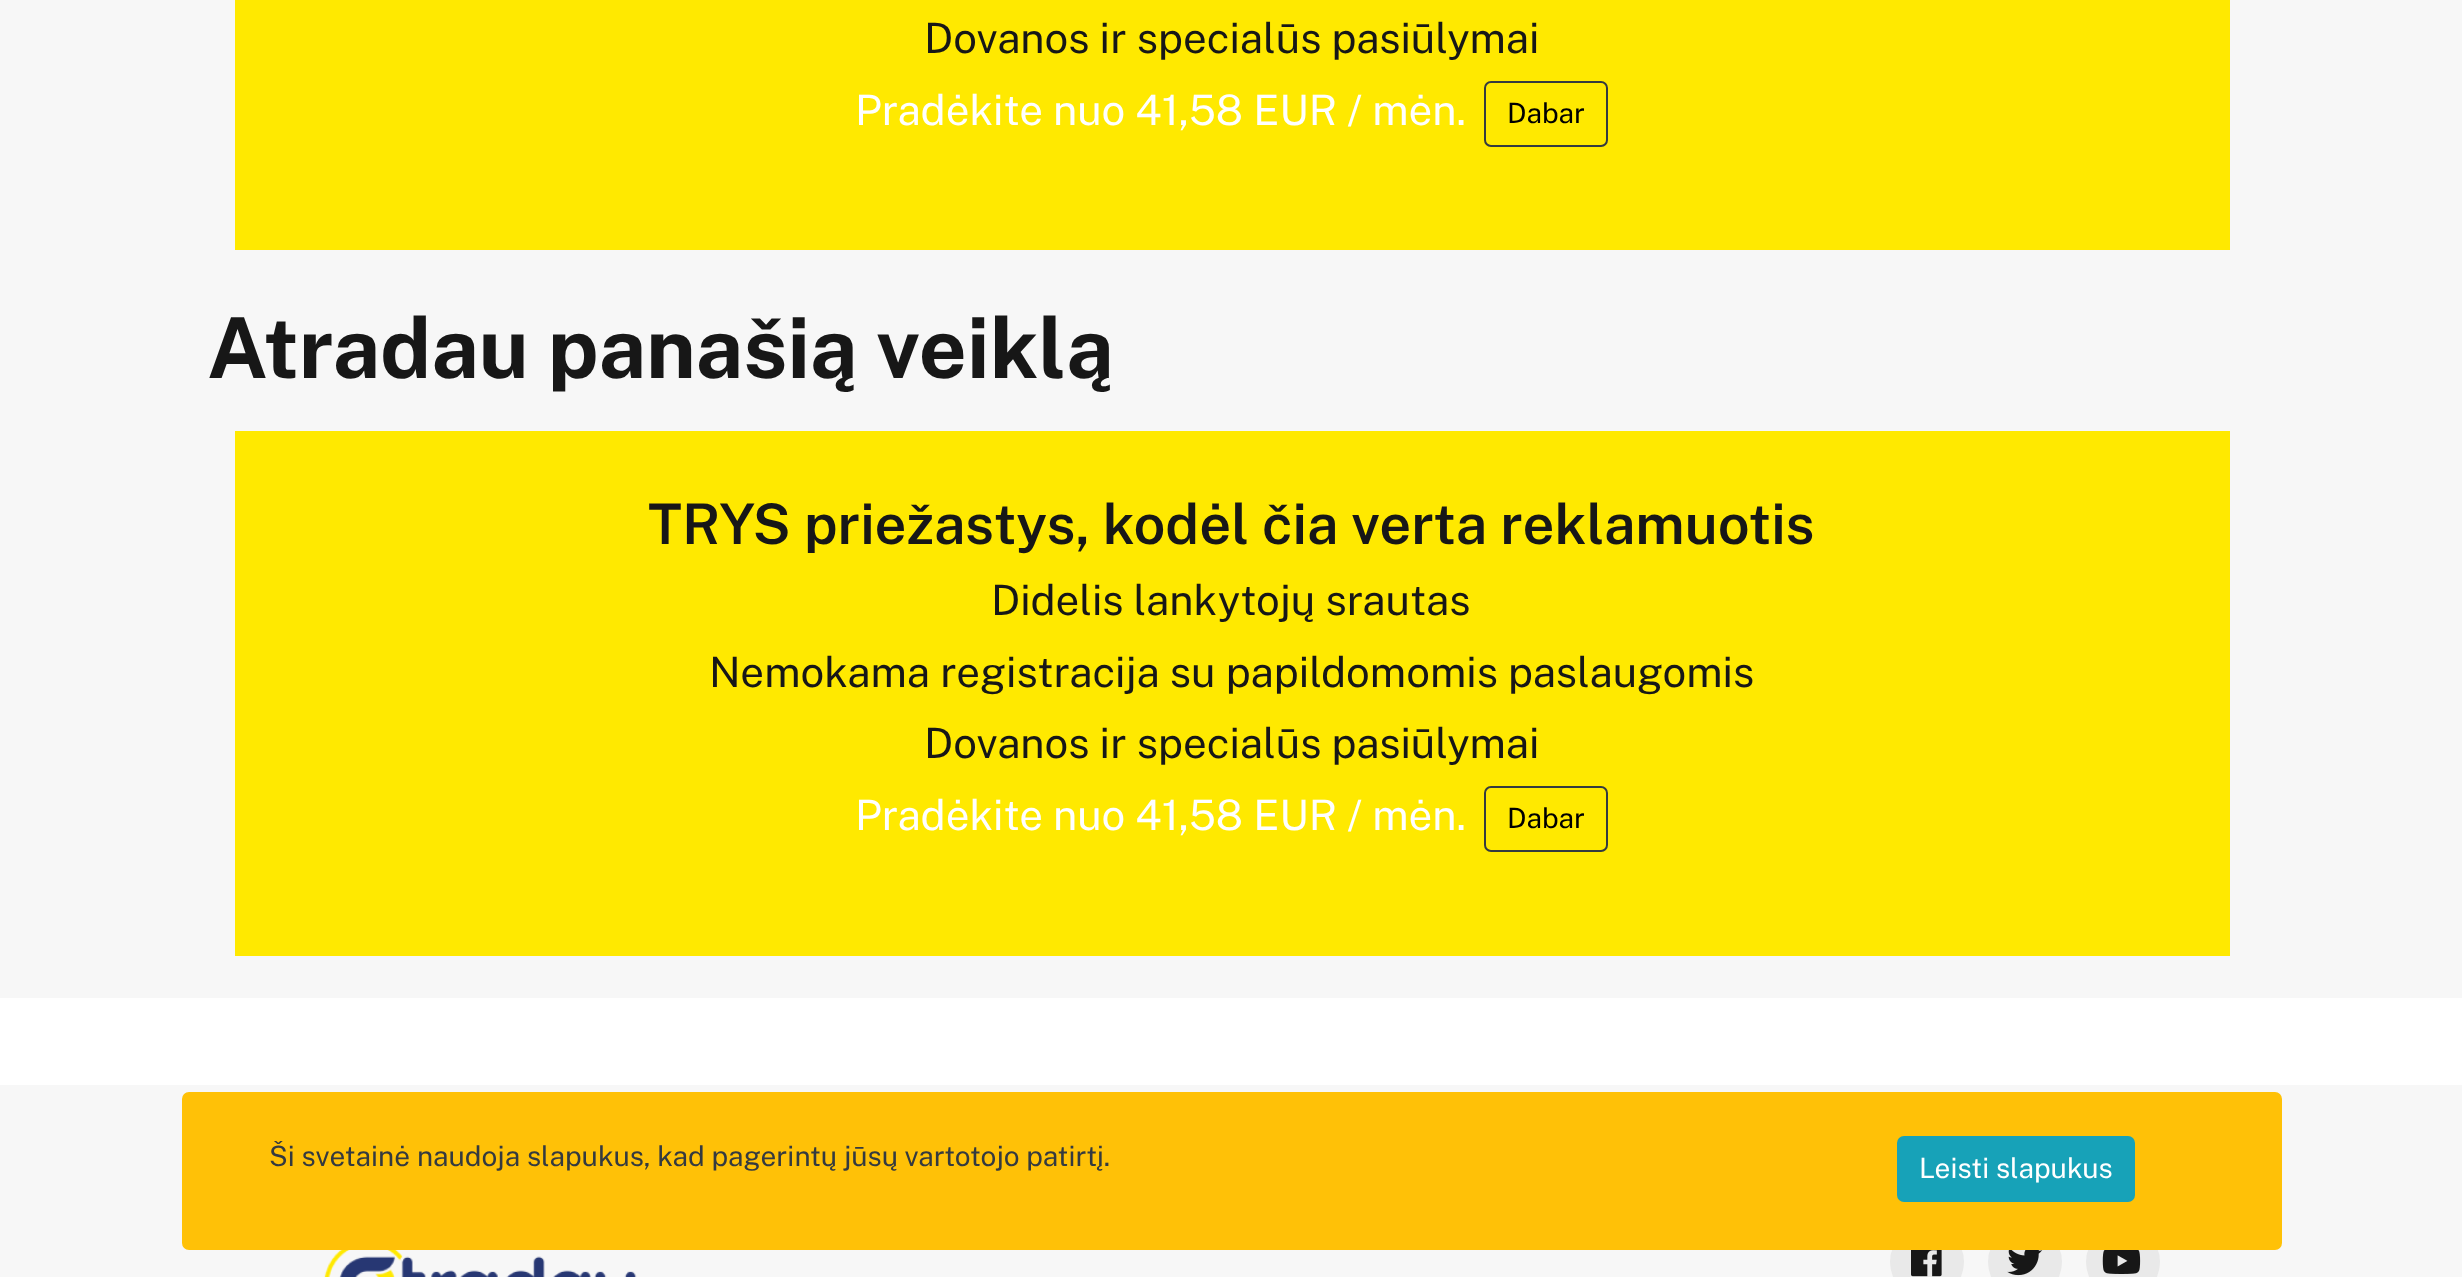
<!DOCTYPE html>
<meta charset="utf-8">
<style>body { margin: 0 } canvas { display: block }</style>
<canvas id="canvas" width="2462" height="1277"></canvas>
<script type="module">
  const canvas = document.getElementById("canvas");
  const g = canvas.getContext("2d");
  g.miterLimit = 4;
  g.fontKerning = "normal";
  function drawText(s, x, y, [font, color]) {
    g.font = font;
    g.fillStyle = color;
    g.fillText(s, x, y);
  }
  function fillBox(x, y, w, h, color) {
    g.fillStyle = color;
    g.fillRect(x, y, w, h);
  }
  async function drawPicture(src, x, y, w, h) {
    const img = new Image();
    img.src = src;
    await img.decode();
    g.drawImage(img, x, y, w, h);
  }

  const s1 = ["42px Public Sans", "#171717"];
  const s2 = ["42px Public Sans", "#FFFFFF"];
  const s3 = ["28px Public Sans", "#000000"];
  const s4 = ["bold 84px Public Sans", "#171717"];
  const s5 = ["600 56px Public Sans", "#171717"];
  const s6 = ["28px Public Sans", "#343A40"];
  const s7 = ["28px Public Sans", "#FFFFFF"];

  fillBox(0, 0, 2462, 1277, "#FFFFFF");
  fillBox(0, 0, 2462, 998, "#F7F7F7");
  fillBox(235, 0, 1995, 250, "#FFE900");
  drawText("Dovanos ir specialūs pasiūlymai", 924, 53, s1);
  drawText("Pradėkite nuo 41,58 EUR / mėn.", 855, 125, s2);
  g.beginPath();
  g.roundRect(1485, 82, 122, 64, 6);
  g.strokeStyle = "#343A40";
  g.lineWidth = 2;
  g.stroke();
  drawText("Dabar", 1507, 123, s3);
  drawText("Atradau panašią veiklą", 207, 378, s4);
  fillBox(235, 431, 1995, 525, "#FFE900");
  drawText("TRYS priežastys, kodėl čia verta reklamuotis", 648, 544, s5);
  drawText("Didelis lankytojų srautas", 991, 615, s1);
  drawText("Nemokama registracija su papildomomis paslaugomis", 709, 687, s1);
  drawText("Dovanos ir specialūs pasiūlymai", 924, 758, s1);
  drawText("Pradėkite nuo 41,58 EUR / mėn.", 855, 830, s2);
  g.beginPath();
  g.roundRect(1485, 787, 122, 64, 6);
  g.stroke();
  drawText("Dabar", 1507, 828, s3);
  fillBox(0, 1085, 2462, 192, "#F7F7F7");
  await drawPicture("pic1.png", 324, 1250, 313, 27);
  g.fillStyle = "#E9E9E9";
  g.beginPath();
  g.arc(1927, 1262, 37, 0, Math.PI * 2);
  g.fill();
  await drawPicture("pic2.png", 1911, 1250, 31, 27);
  g.beginPath();
  g.arc(2025, 1262, 37, 0, Math.PI * 2);
  g.fill();
  await drawPicture("pic3.png", 2007, 1250, 36, 26);
  g.beginPath();
  g.arc(2123, 1262, 37, 0, Math.PI * 2);
  g.fill();
  await drawPicture("pic4.png", 2102, 1250, 39, 24);
  g.fillStyle = "#FFC107";
  g.beginPath();
  g.roundRect(183, 1093, 2098, 156, 6);
  g.fill();
  g.strokeStyle = "#FFC107";
  g.stroke();
  drawText("Ši svetainė naudoja slapukus, kad pagerintų jūsų vartotojo patirtį.", 269, 1166, s6);
  g.fillStyle = "#17A2B8";
  g.beginPath();
  g.roundRect(1898, 1137, 236, 64, 6);
  g.fill();
  g.strokeStyle = "#17A2B8";
  g.stroke();
  drawText("Leisti slapukus", 1919, 1178, s7);
</script>
